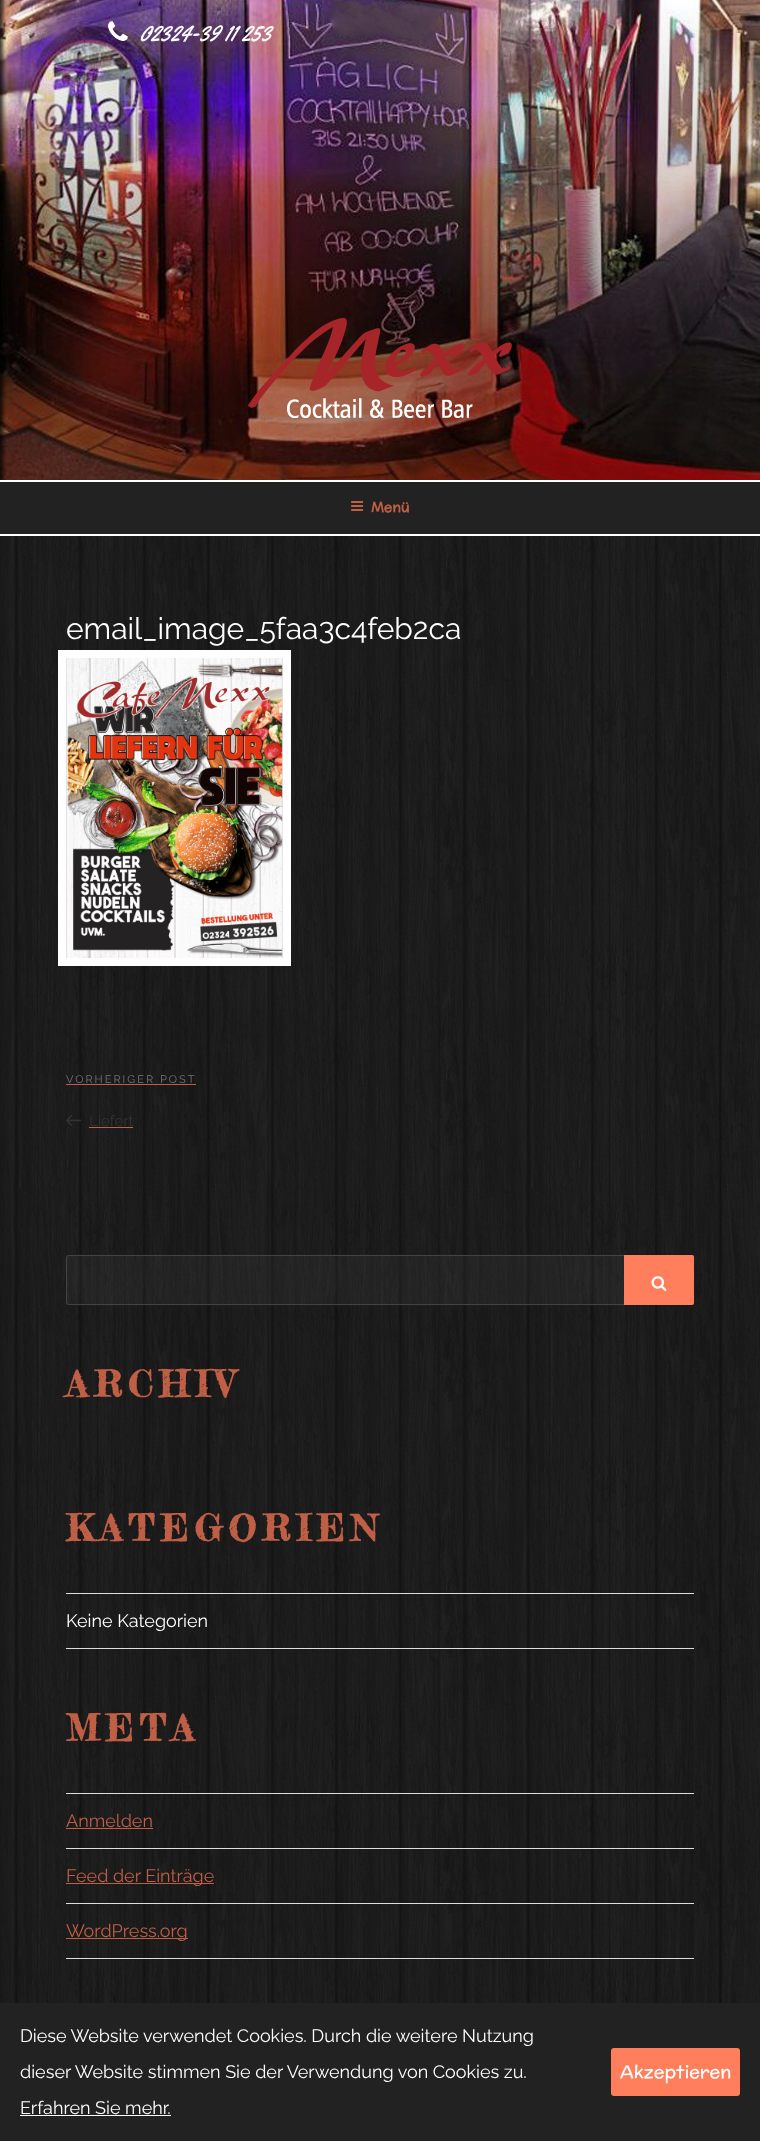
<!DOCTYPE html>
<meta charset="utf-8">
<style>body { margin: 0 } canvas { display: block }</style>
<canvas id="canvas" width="760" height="2141"></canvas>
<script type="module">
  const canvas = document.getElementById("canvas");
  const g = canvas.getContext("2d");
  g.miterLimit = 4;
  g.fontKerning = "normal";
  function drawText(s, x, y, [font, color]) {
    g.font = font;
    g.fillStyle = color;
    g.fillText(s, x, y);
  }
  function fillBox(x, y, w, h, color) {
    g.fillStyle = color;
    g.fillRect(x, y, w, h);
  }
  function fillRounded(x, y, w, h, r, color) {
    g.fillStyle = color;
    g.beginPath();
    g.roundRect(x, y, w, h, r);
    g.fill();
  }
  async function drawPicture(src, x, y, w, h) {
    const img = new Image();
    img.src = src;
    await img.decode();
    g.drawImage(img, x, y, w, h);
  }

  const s1 = ["25.25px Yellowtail", "#FFFFFF"];
  const s2 = ["bold 14px McLaren", "#BF5F45"];
  const s3 = ["100 30px Raleway", "#FFFFFF"];
  const s4 = ["100 11px Raleway", "#767676"];
  const s5 = ["100 15px Raleway", "#333333"];
  const s6 = ["bold 36px Fredericka the Great", "#BF5F45"];
  const s7 = ["100 18px Raleway", "#FFFFFF"];
  const s8 = ["100 18px Raleway", "#BF5F45"];
  const s9 = ["18px McLaren", "#FFFFFF"];

  fillBox(0, 0, 760, 2141, "#FFFFFF");
  await drawPicture("pic2.png", 0, 0, 760, 480);
  await drawPicture("pic1.png", 108, 21, 20, 20);
  drawText("02324-39 11 253", 140, 41, s1);
  await drawPicture("pic3.png", 248, 318, 264, 100);
  fillBox(0, 482, 760, 52, "#222222");
  await drawPicture("pic4.png", 351, 501, 13, 10);
  drawText("Menü", 371, 512, s2);
  fillBox(0, 536, 760, 1605, "#222222");
  await drawPicture("pic5.png", 0, 536, 760, 1467);
  drawText("email_image_5faa3c4feb2ca", 66, 639, s3);
  g.strokeStyle = "#FFFFFF";
  g.lineWidth = 8;
  g.strokeRect(62, 654, 225, 308);
  await drawPicture("pic6.png", 66, 658, 217, 300);
  g.letterSpacing = "2px";
  drawText("VORHERIGER POST", 66, 1083, s4);
  fillBox(66, 1084, 130, 1, "#BF5F45");
  await drawPicture("pic7.png", 66, 1115, 15, 11);
  g.letterSpacing = "0px";
  drawText("Liefert", 89, 1126, s5);
  fillBox(89, 1127, 44, 1, "#BF5F45");
  fillBox(66, 1255, 628, 50, "rgba(255, 255, 255, 0.04)");
  g.beginPath();
  g.roundRect(66.5, 1255.5, 627, 49, 2.5);
  g.strokeStyle = "#444444";
  g.lineWidth = 1;
  g.stroke();
  g.fillStyle = "#FF7F5C";
  g.beginPath();
  g.roundRect(624, 1255, 70, 50, [0, 2, 2, 0]);
  g.fill();
  await drawPicture("pic8.png", 651, 1276, 16, 15);
  g.letterSpacing = "6.5px";
  drawText("ARCHIV", 66, 1397, s6);
  drawText("KATEGORIEN", 66, 1541, s6);
  fillBox(66, 1593, 628, 1, "#DDDDDD");
  fillBox(66, 1648, 628, 1, "#DDDDDD");
  g.letterSpacing = "0px";
  drawText("Keine Kategorien", 66, 1627, s7);
  g.letterSpacing = "6.5px";
  drawText("META", 66, 1741, s6);
  fillBox(66, 1793, 628, 1, "#DDDDDD");
  fillBox(66, 1848, 628, 1, "#DDDDDD");
  g.letterSpacing = "0px";
  drawText("Anmelden", 66, 1827, s8);
  fillBox(66, 1828, 87, 1, "#BF5F45");
  fillBox(66, 1903, 628, 1, "#DDDDDD");
  fillBox(66, 1883, 148, 1, "#BF5F45");
  drawText("Feed der Einträge", 66, 1882, s8);
  fillBox(66, 1958, 628, 1, "#DDDDDD");
  fillBox(66, 1938, 122, 1, "#BF5F45");
  drawText("WordPress.org", 66, 1937, s8);
  drawText("Diese Website verwendet Cookies. Durch die weitere Nutzung", 20, 2042, s7);
  drawText("dieser Website stimmen Sie der Verwendung von Cookies zu.", 20, 2078, s7);
  drawText("Erfahren Sie mehr.", 20, 2114, s7);
  fillBox(20, 2115, 151, 1, "#FFFFFF");
  fillRounded(611, 2048, 129, 48, 3, "#FF7F5C");
  drawText("Akzeptieren", 620, 2078, s9);
</script>
